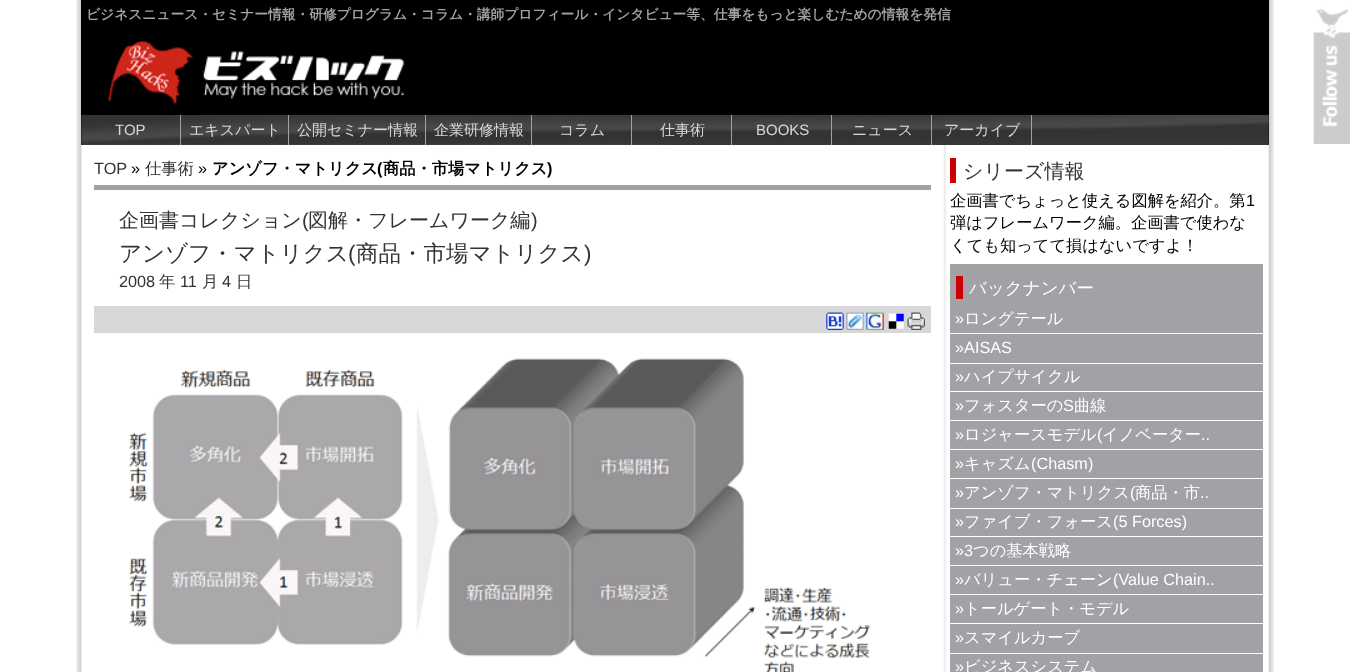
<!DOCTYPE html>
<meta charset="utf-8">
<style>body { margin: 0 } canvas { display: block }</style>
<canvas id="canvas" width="1350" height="672"></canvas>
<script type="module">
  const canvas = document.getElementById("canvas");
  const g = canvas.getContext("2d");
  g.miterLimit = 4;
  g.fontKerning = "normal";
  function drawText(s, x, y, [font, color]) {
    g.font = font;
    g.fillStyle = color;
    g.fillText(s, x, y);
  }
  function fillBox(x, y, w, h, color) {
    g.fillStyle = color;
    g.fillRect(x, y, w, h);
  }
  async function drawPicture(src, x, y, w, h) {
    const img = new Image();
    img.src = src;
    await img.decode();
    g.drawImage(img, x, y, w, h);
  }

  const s1 = ["bold 13.75px WenQuanYi Zen Hei", "#A1A1A6"];
  const s2 = ["15px Liberation Sans", "#D7D7D9"];
  const s3 = ["500 15px WenQuanYi Zen Hei", "#D7D7D9"];
  const s4 = ["16.25px Liberation Sans", "#333333"];
  const s5 = ["16.25px Liberation Sans", "#000000"];
  const s6 = ["500 16.25px WenQuanYi Zen Hei", "#333333"];
  const s7 = ["bold 16.25px WenQuanYi Zen Hei", "#000000"];
  const s8 = ["bold 16.25px Liberation Sans", "#000000"];
  const s9 = ["500 20px WenQuanYi Zen Hei", "#333333"];
  const s10 = ["20px Liberation Sans", "#333333"];
  const s11 = ["500 22.5px WenQuanYi Zen Hei", "#333333"];
  const s12 = ["22.5px Liberation Sans", "#333333"];
  const s13 = ["500 16.25px WenQuanYi Zen Hei", "#000000"];
  const s14 = ["500 17.5px WenQuanYi Zen Hei", "#FFFFFF"];
  const s15 = ["16.25px Liberation Sans", "#FFFFFF"];
  const s16 = ["500 16.25px WenQuanYi Zen Hei", "#FFFFFF"];

  fillBox(0, 0, 1350, 672, "#FFFFFF");
  await drawPicture("pic1.png", 76, 0, 1198, 672);
  fillBox(81, 0, 1188, 145, "#000000");
  drawText("ビジネスニュース・セミナー情報・研修プログラム・コラム・講師プロフィール・インタビュー等、仕事をもっと楽しむための情報を発信", 86, 19, s1);
  await drawPicture("pic2.png", 108, 41, 296, 63);
  await drawPicture("pic3.png", 81, 115, 1188, 30);
  fillBox(180, 115, 1, 30, "#A1A1A6");
  drawText("TOP", 115, 135, s2);
  fillBox(288, 115, 1, 30, "#A1A1A6");
  drawText("エキスパート", 189, 135, s3);
  fillBox(425, 115, 1, 30, "#A1A1A6");
  drawText("公開セミナー情報", 297, 135, s3);
  fillBox(531, 115, 1, 30, "#A1A1A6");
  drawText("企業研修情報", 434, 135, s3);
  fillBox(631, 115, 1, 30, "#A1A1A6");
  drawText("コラム", 559, 135, s3);
  fillBox(731, 115, 1, 30, "#A1A1A6");
  drawText("仕事術", 660, 135, s3);
  fillBox(831, 115, 1, 30, "#A1A1A6");
  drawText("BOOKS", 756, 135, s2);
  fillBox(931, 115, 1, 30, "#A1A1A6");
  drawText("ニュース", 852, 135, s3);
  fillBox(1031, 115, 1, 30, "#A1A1A6");
  drawText("アーカイブ", 944, 135, s3);
  drawText("TOP", 94, 174, s4);
  drawText("»", 131, 174, s5);
  drawText("仕事術", 145, 174, s6);
  drawText("»", 198, 174, s5);
  drawText("アンゾフ・マトリクス", 212, 174, s7);
  drawText("(", 377, 174, s8);
  drawText("商品・市場マトリクス", 383, 174, s7);
  drawText(")", 547, 174, s8);
  fillBox(94, 185, 837, 5, "#A1A1A6");
  drawText("企画書コレクション", 119, 227, s9);
  drawText("(", 302, 227, s10);
  drawText("図解・フレームワーク編", 308, 227, s9);
  drawText(")", 531, 227, s10);
  drawText("アンゾフ・マトリクス", 119, 261, s11);
  drawText("(", 348, 261, s12);
  drawText("商品・市場マトリクス", 356, 261, s11);
  drawText(")", 584, 261, s12);
  drawText("2008", 119, 287, s4);
  drawText("年", 159, 287, s6);
  drawText("11", 180, 287, s4);
  drawText("月", 202, 287, s6);
  drawText("4", 222, 287, s4);
  drawText("日", 236, 287, s6);
  fillBox(94, 306, 837, 27, "#D7D7D9");
  await drawPicture("pic4.png", 826, 312, 18, 18);
  await drawPicture("pic5.png", 846, 312, 18, 18);
  await drawPicture("pic6.png", 866, 312, 18, 18);
  await drawPicture("pic7.png", 888, 313, 16, 16);
  await drawPicture("pic8.png", 907, 312, 18, 18);
  await drawPicture("pic9.png", 128, 358, 743, 314);
  fillBox(950, 158, 6, 25, "#CC0000");
  drawText("シリーズ情報", 963, 178, s9);
  drawText("企画書でちょっと使える図解を紹介。第", 950, 206, s13);
  drawText("1", 1246, 206, s5);
  drawText("弾はフレームワーク編。企画書で使わな", 950, 228, s13);
  drawText("くても知ってて損はないですよ！", 950, 251, s13);
  fillBox(950, 264, 313, 408, "#A1A1A6");
  fillBox(956, 276, 7, 23, "#CC0000");
  drawText("バックナンバー", 969, 294, s14);
  fillBox(950, 333, 313, 1, "#FFFFFF");
  drawText("»", 955, 324, s15);
  drawText("ロングテール", 964, 324, s16);
  fillBox(950, 363, 313, 1, "#FFFFFF");
  drawText("»AISAS", 955, 353, s15);
  fillBox(950, 391, 313, 1, "#FFFFFF");
  drawText("»", 955, 382, s15);
  drawText("ハイプサイクル", 964, 382, s16);
  fillBox(950, 420, 313, 1, "#FFFFFF");
  drawText("»", 955, 411, s15);
  drawText("フォスターの", 964, 411, s16);
  drawText("S", 1063, 411, s15);
  drawText("曲線", 1074, 411, s16);
  fillBox(950, 449, 313, 1, "#FFFFFF");
  drawText("»", 955, 440, s15);
  drawText("ロジャースモデル", 964, 440, s16);
  drawText("(", 1097, 440, s15);
  drawText("イノベーター", 1102, 440, s16);
  drawText("..", 1201, 440, s15);
  fillBox(950, 478, 313, 1, "#FFFFFF");
  drawText("»", 955, 469, s15);
  drawText("キャズム", 964, 469, s16);
  drawText("(Chasm)", 1031, 469, s15);
  fillBox(950, 508, 313, 1, "#FFFFFF");
  drawText("»", 955, 498, s15);
  drawText("アンゾフ・マトリクス", 964, 498, s16);
  drawText("(", 1130, 498, s15);
  drawText("商品・市", 1135, 498, s16);
  drawText("..", 1200, 498, s15);
  fillBox(950, 536, 313, 1, "#FFFFFF");
  drawText("»", 955, 527, s15);
  drawText("ファイブ・フォース", 964, 527, s16);
  drawText("(5 Forces)", 1113, 527, s15);
  fillBox(950, 565, 313, 1, "#FFFFFF");
  drawText("»3", 955, 556, s15);
  drawText("つの基本戦略", 973, 556, s16);
  fillBox(950, 594, 313, 1, "#FFFFFF");
  drawText("»", 955, 585, s15);
  drawText("バリュー・チェーン", 964, 585, s16);
  drawText("(Value Chain..", 1113, 585, s15);
  fillBox(950, 623, 313, 1, "#FFFFFF");
  drawText("»", 955, 614, s15);
  drawText("トールゲート・モデル", 964, 614, s16);
  fillBox(950, 653, 313, 1, "#FFFFFF");
  drawText("»", 955, 643, s15);
  drawText("スマイルカーブ", 964, 643, s16);
  drawText("»", 955, 672, s15);
  drawText("ビジネスシステム", 964, 672, s16);
  fillBox(1313, 7, 37, 137, "#CCCCCC");
  await drawPicture("pic10.png", 1313, 0, 37, 144);
</script>
